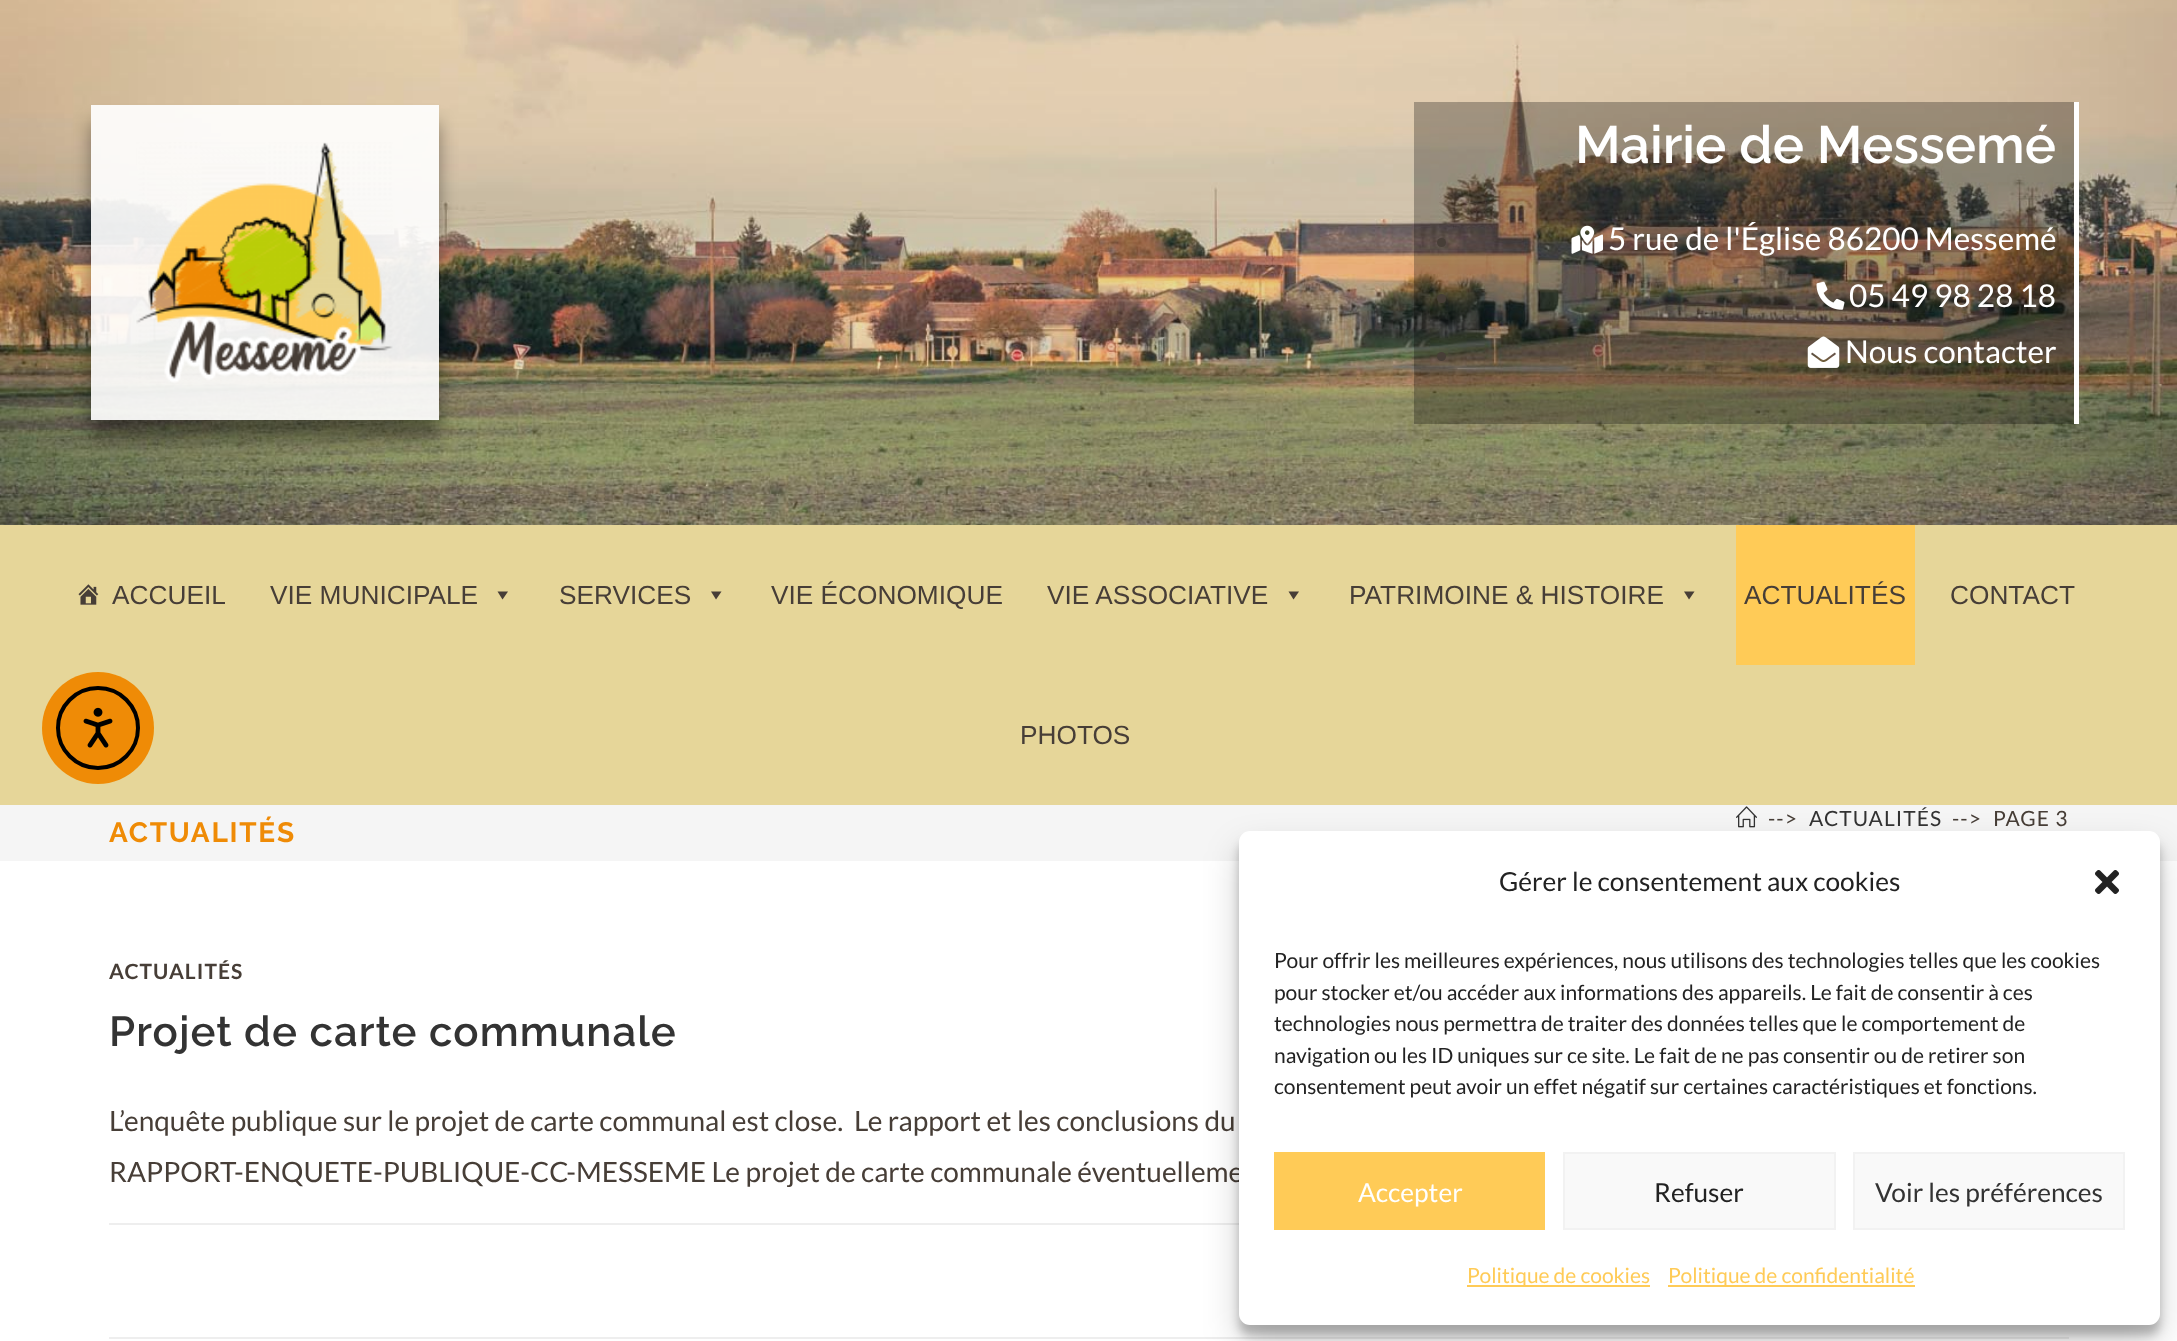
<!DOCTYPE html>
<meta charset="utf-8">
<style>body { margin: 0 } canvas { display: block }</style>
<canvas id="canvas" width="2177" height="1341"></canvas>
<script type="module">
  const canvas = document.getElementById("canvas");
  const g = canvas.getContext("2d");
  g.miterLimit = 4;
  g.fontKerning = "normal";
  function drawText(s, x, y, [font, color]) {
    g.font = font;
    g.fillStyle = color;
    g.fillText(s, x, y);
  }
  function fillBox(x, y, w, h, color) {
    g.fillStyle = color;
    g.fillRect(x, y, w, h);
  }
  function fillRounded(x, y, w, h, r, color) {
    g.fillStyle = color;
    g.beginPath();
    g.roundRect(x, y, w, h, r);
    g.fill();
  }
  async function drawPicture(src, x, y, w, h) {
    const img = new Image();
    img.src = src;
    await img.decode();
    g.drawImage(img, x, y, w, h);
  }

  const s1 = ["600 52.5px Raleway", "#FFFFFF"];
  const s2 = ["31.5px Lato", "#FFFFFF"];
  const s3 = ["26.25px Liberation Sans", "#473E37"];
  const s4 = ["bold 28px Raleway", "#EF8B06"];
  const s5 = ["21px Lato", "#473E37"];
  const s6 = ["21px Lato", "#333333"];
  const s7 = ["bold 21px Lato", "#473E37"];
  const s8 = ["600 42px Raleway", "#333333"];
  const s9 = ["28px Lato", "#473E37"];
  const s10 = ["26.25px Lato", "#222222"];
  const s11 = ["21px Lato", "#222222"];
  const s12 = ["26.25px Lato", "#FFFFFF"];
  const s13 = ["26.25px Lato", "#333333"];
  const s14 = ["21px Lato", "#FFCB57"];

  fillBox(0, 0, 2177, 1341, "#FFFFFF");
  fillBox(0, 525, 2177, 280, "#E6D699");
  g.fillStyle = "#EF8B06";
  g.beginPath();
  g.arc(98, 728, 56, 0, Math.PI * 2);
  g.fill();
  g.beginPath();
  g.arc(98, 728, 40, 0, Math.PI * 2);
  g.strokeStyle = "#000000";
  g.lineWidth = 4;
  g.stroke();
  await drawPicture("pic1.png", 83, 707, 30, 41);
  await drawPicture("pic2.png", 0, 0, 2177, 525);
  g.save();
  g.beginPath();
  g.moveTo(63, 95);
  g.lineTo(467, 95);
  g.lineTo(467, 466);
  g.lineTo(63, 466);
  g.closePath();
  g.moveTo(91, 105);
  g.lineTo(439, 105);
  g.lineTo(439, 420);
  g.lineTo(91, 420);
  g.closePath();
  g.clip("evenodd");
  g.fillStyle = "rgba(0, 0, 0, 0.4)";
  g.filter = "blur(9px)";
  g.beginPath();
  g.rect(91, 123, 348, 315);
  g.fill();
  g.filter = "none";
  g.restore();
  fillBox(91, 105, 348, 315, "rgba(255, 255, 255, 0.91)");
  await drawPicture("pic3.png", 136, 142, 257, 241);
  fillBox(1414, 102, 660, 322, "rgba(0, 0, 0, 0.28)");
  fillBox(2074, 102, 5, 322, "#FFFFFF");
  drawText("Mairie de Messemé", 1575, 163, s1);
  g.fillStyle = "#473E37";
  g.beginPath();
  g.arc(1441.5, 242.5, 4.5, 0, Math.PI * 2);
  g.fill();
  await drawPicture("pic4.png", 1571, 225, 32, 29);
  drawText("5 rue de l'Église 86200 Messemé", 1608, 250, s2);
  g.fillStyle = "#473E37";
  g.beginPath();
  g.arc(1441.5, 298.5, 4.5, 0, Math.PI * 2);
  g.fill();
  await drawPicture("pic5.png", 1816, 281, 29, 29);
  drawText("05 49 98 28 18", 1849, 307, s2);
  g.fillStyle = "#473E37";
  g.beginPath();
  g.arc(1441.5, 356.5, 4.5, 0, Math.PI * 2);
  g.fill();
  await drawPicture("pic6.png", 1807, 336, 33, 32);
  drawText("Nous contacter", 1845, 363, s2);
  await drawPicture("pic7.png", 78, 584, 21, 21);
  drawText("ACCUEIL", 112, 604, s3);
  drawText("VIE MUNICIPALE", 270, 604, s3);
  g.beginPath();
  g.moveTo(508, 591.5);
  g.lineTo(502.5, 599.5);
  g.lineTo(497.5, 591.5);
  g.closePath();
  g.fill();
  drawText("SERVICES", 559, 604, s3);
  g.beginPath();
  g.moveTo(721.5, 591.5);
  g.lineTo(716, 599.5);
  g.lineTo(711, 591.5);
  g.closePath();
  g.fill();
  drawText("VIE ÉCONOMIQUE", 771, 604, s3);
  drawText("VIE ASSOCIATIVE", 1047, 604, s3);
  g.beginPath();
  g.moveTo(1299, 591.5);
  g.lineTo(1293.5, 599.5);
  g.lineTo(1288.5, 591.5);
  g.closePath();
  g.fill();
  drawText("PATRIMOINE & HISTOIRE", 1349, 604, s3);
  g.beginPath();
  g.moveTo(1694.5, 591.5);
  g.lineTo(1689, 599.5);
  g.lineTo(1684, 591.5);
  g.closePath();
  g.fill();
  fillBox(1736, 525, 179, 140, "#FFCB57");
  drawText("ACTUALITÉS", 1744, 604, s3);
  drawText("CONTACT", 1950, 604, s3);
  drawText("PHOTOS", 1020, 744, s3);
  fillBox(0, 805, 2177, 56, "#F5F5F5");
  g.letterSpacing = "1.75px";
  drawText("ACTUALITÉS", 109, 842, s4);
  await drawPicture("pic8.png", 1736, 806, 21, 22);
  g.letterSpacing = "1.05px";
  drawText("-->", 1768, 826, s5);
  drawText("ACTUALITÉS", 1809, 826, s6);
  drawText("-->", 1952, 826, s5);
  drawText("PAGE 3", 1993, 826, s5);
  fillBox(109, 1337, 1960, 2, "#EEEEEE");
  drawText("ACTUALITÉS", 109, 979, s7);
  drawText("Projet de carte communale", 109, 1046, s8);
  g.letterSpacing = "0px";
  drawText("L’enquête publique sur le projet de carte communal est close.  Le rapport et les conclusions du", 109, 1131, s9);
  drawText("RAPPORT-ENQUETE-PUBLIQUE-CC-MESSEME Le projet de carte communale éventuelleme", 109, 1182, s9);
  fillBox(109, 1223, 1130, 2, "#EEEEEE");
  g.fillStyle = "rgba(0, 0, 0, 0.23)";
  g.filter = "blur(5px)";
  g.beginPath();
  g.roundRect(1239, 842, 921, 493, 11);
  g.fill();
  g.filter = "none";
  g.fillStyle = "rgba(0, 0, 0, 0.19)";
  g.filter = "blur(17.5px)";
  g.beginPath();
  g.roundRect(1239, 849, 921, 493, 11);
  g.fill();
  g.filter = "none";
  fillRounded(1239, 831, 921, 494, 11, "#FFFFFF");
  drawText("Gérer le consentement aux cookies", 1499, 891, s10);
  await drawPicture("pic9.png", 2095, 870, 24, 24);
  drawText("Pour offrir les meilleures expériences, nous utilisons des technologies telles que les cookies", 1274, 968, s11);
  drawText("pour stocker et/ou accéder aux informations des appareils. Le fait de consentir à ces", 1274, 1000, s11);
  drawText("technologies nous permettra de traiter des données telles que le comportement de", 1274, 1031, s11);
  drawText("navigation ou les ID uniques sur ce site. Le fait de ne pas consentir ou de retirer son", 1274, 1063, s11);
  drawText("consentement peut avoir un effet négatif sur certaines caractéristiques et fonctions.", 1274, 1094, s11);
  fillBox(1274, 1152, 271, 78, "#FFCB57");
  drawText("Accepter", 1358, 1202, s12);
  g.fillStyle = "#F9F9F9";
  g.beginPath();
  g.rect(1564, 1153, 271, 76);
  g.fill();
  g.strokeStyle = "#F2F2F2";
  g.lineWidth = 2;
  g.stroke();
  drawText("Refuser", 1654, 1202, s10);
  g.fillStyle = "#F9F9F9";
  g.beginPath();
  g.rect(1854, 1153, 270, 76);
  g.fill();
  g.stroke();
  drawText("Voir les préférences", 1875, 1202, s13);
  fillBox(1467, 1285, 183, 2, "#FFCB57");
  drawText("Politique de cookies", 1467, 1283, s14);
  fillBox(1668, 1285, 247, 2, "#FFCB57");
  drawText("Politique de confidentialité", 1668, 1283, s14);
</script>
